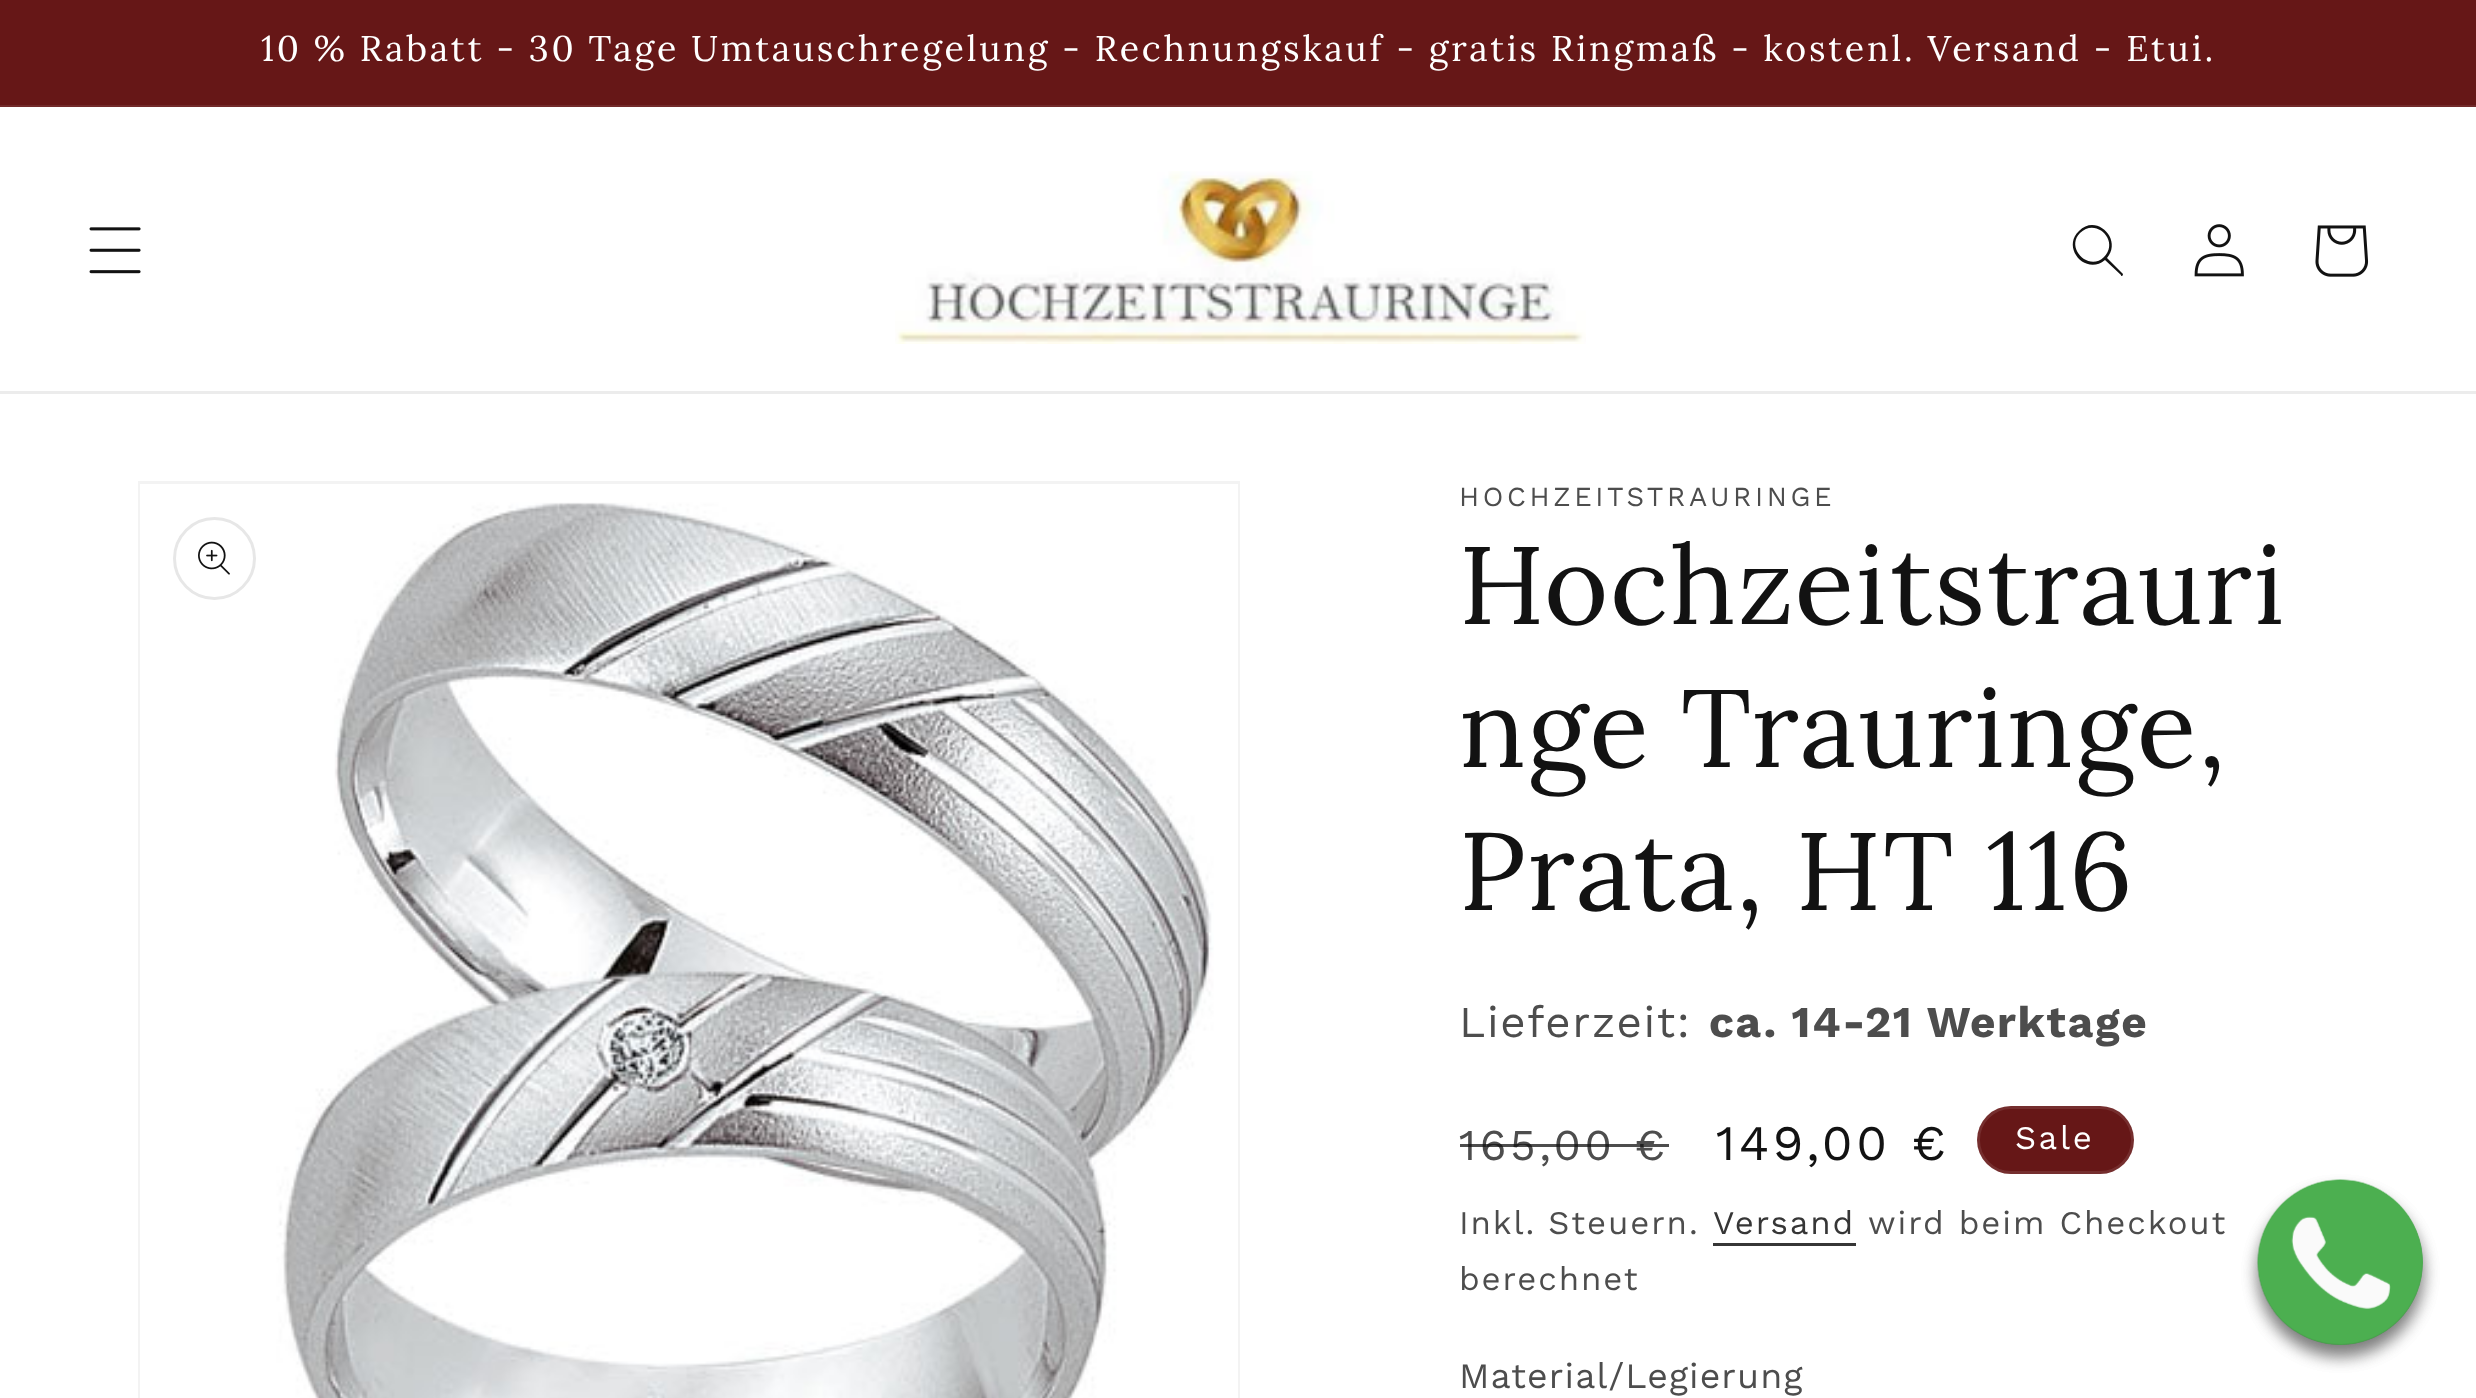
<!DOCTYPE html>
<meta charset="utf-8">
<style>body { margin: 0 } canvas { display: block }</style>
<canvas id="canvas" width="2476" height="1398"></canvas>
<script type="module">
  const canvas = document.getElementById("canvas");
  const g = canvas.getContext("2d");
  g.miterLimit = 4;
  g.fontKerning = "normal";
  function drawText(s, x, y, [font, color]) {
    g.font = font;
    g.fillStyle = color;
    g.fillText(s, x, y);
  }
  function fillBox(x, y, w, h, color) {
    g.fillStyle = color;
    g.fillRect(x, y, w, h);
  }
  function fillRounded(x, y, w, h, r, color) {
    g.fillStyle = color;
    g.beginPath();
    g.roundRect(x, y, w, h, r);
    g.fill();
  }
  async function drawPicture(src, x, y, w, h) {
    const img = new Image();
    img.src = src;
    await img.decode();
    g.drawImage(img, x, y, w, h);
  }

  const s1 = ["35.75px Lora", "#FFFFFF"];
  const s2 = ["27.5px Work Sans", "#4D4D4D"];
  const s3 = ["110px Lora", "#121212"];
  const s4 = ["44px Work Sans", "#4D4D4D"];
  const s5 = ["bold 44px Work Sans", "#4D4D4D"];
  const s6 = ["49.5px Work Sans", "#121212"];
  const s7 = ["33px Work Sans", "#FFFFFF"];
  const s8 = ["33px Work Sans", "#4D4D4D"];
  const s9 = ["33px Work Sans", "#363636"];
  const s10 = ["35.75px Work Sans", "#4D4D4D"];

  fillBox(0, 0, 2476, 1398, "#FFFFFF");
  fillBox(0, 0, 2476, 105, "#661717");
  fillBox(0, 105, 2476, 2, "#722A2A");
  g.letterSpacing = "2.75px";
  drawText("10 % Rabatt - 30 Tage Umtauschregelung - Rechnungskauf - gratis Ringmaß - kostenl. Versand - Etui.", 261, 61, s1);
  fillBox(0, 391, 2476, 3, "#ECECEC");
  await drawPicture("pic1.png", 89, 227, 52, 47);
  await drawPicture("pic2.png", 895, 171, 691, 173);
  g.fillStyle = "#121212";
  g.beginPath();
  g.moveTo(2104, 257);
  g.bezierCurveTo(2089, 272, 2065, 248, 2080, 233);
  g.bezierCurveTo(2096, 217, 2120, 241, 2104, 257);
  g.moveTo(2105, 260);
  g.bezierCurveTo(2086, 276, 2061, 248, 2079, 231);
  g.bezierCurveTo(2096, 213, 2123, 239, 2107, 258);
  g.lineTo(2123, 274);
  g.bezierCurveTo(2123, 276, 2121, 277, 2121, 275);
  g.closePath();
  g.fill("evenodd");
  await drawPicture("pic3.png", 2194, 224, 50, 53);
  await drawPicture("pic4.png", 2315, 225, 54, 52);
  g.strokeStyle = "#F3F3F3";
  g.lineWidth = 3;
  g.strokeRect(139.5, 482.5, 1099, 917);
  await drawPicture("pic5.png", 140, 484, 1098, 914);
  g.beginPath();
  g.arc(214.5, 558.5, 40, 0, Math.PI * 2);
  g.strokeStyle = "#E7E7E7";
  g.stroke();
  await drawPicture("pic6.png", 198, 541, 32, 34);
  g.letterSpacing = "3.6px";
  drawText("HOCHZEITSTRAURINGE", 1459, 506, s2);
  g.letterSpacing = "1.6px";
  drawText("Hochzeitstrauri", 1459, 624, s3);
  drawText("nge Trauringe,", 1459, 767, s3);
  drawText("Prata, HT 116", 1459, 910, s3);
  drawText("Lieferzeit:", 1459, 1037, s4);
  drawText("ca. 14-21 Werktage", 1709, 1037, s5);
  g.letterSpacing = "3.6px";
  drawText("165,00 €", 1459, 1160, s4);
  fillBox(1460, 1144, 209, 3, "rgba(18, 18, 18, 0.75)");
  drawText("149,00 €", 1716, 1160, s6);
  fillRounded(1977, 1106, 157, 68, 34, "#661717");
  g.beginPath();
  g.roundRect(1978.5, 1107.5, 154, 65, 32.5);
  g.strokeStyle = "rgba(255, 255, 255, 0.1)";
  g.stroke();
  g.letterSpacing = "2.75px";
  drawText("Sale", 2015, 1149, s7);
  g.letterSpacing = "1.9px";
  g.wordSpacing = "-1px";
  drawText("Inkl. Steuern.", 1459, 1234, s8);
  g.wordSpacing = "0px";
  drawText("Versand", 1713, 1234, s9);
  fillBox(1713, 1243, 143, 3, "#363636");
  drawText("wird beim Checkout", 1868, 1234, s8);
  drawText("berechnet", 1459, 1290, s8);
  g.letterSpacing = "1.1px";
  drawText("Material/Legierung", 1459, 1388, s10);
  g.fillStyle = "rgba(0, 0, 0, 0.3)";
  g.filter = "blur(8px)";
  g.beginPath();
  g.roundRect(2258, 1191, 165, 165, 82.5);
  g.fill();
  g.filter = "none";
  await drawPicture("pic7.png", 2257, 1179, 166, 166);
  g.filter = "blur(8px)";
  g.beginPath();
  g.roundRect(2258, 1191, 165, 165, 82.5);
  g.fill();
  g.filter = "none";
  await drawPicture("pic8.png", 2257, 1179, 166, 166);
</script>
